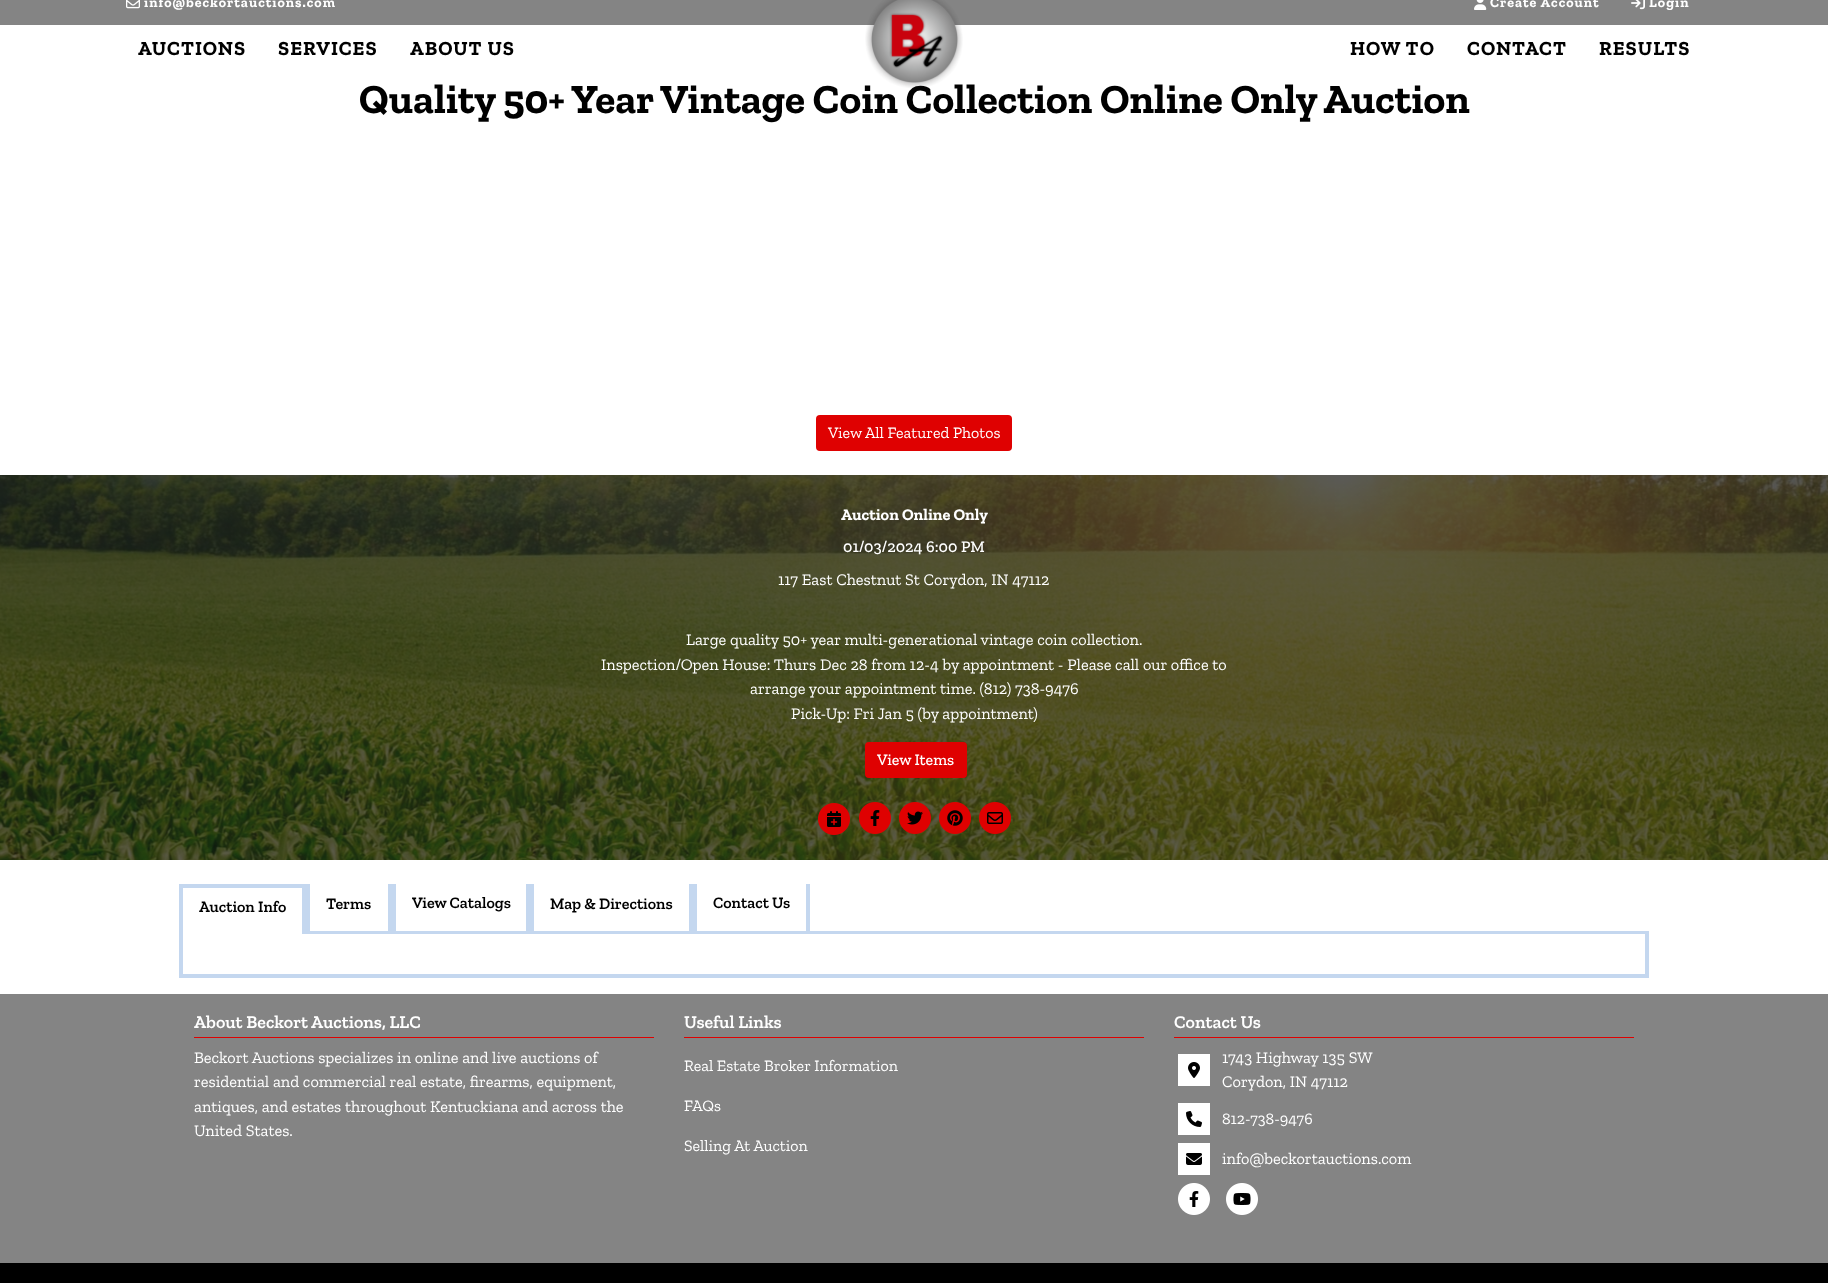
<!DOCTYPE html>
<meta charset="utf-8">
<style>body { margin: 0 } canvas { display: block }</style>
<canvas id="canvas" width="1828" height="1283"></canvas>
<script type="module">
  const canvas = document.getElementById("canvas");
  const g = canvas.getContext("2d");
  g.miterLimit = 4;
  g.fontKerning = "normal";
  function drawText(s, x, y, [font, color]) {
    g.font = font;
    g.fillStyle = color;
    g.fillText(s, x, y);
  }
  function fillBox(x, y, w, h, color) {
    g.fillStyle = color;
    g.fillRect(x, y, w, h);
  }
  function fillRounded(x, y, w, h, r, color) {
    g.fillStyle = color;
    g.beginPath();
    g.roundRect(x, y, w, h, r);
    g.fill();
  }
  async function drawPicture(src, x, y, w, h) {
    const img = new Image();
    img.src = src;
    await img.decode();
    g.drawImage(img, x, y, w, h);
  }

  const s1 = ["bold 14px Zilla Slab", "#FFFFFF"];
  const s2 = ["bold 41.4px Zilla Slab", "#000000"];
  const s3 = ["bold 20px Zilla Slab", "#000000"];
  const s4 = ["16px Zilla Slab", "#FFFFFF"];
  const s5 = ["bold 16.35px Zilla Slab", "#FFFFFF"];
  const s6 = ["500 16.35px Zilla Slab", "#FFFFFF"];
  const s7 = ["16.35px Zilla Slab", "#FFFFFF"];
  const s8 = ["500 16px Zilla Slab", "#FFFFFF"];
  const s9 = ["600 16px Zilla Slab", "#000000"];
  const s10 = ["600 18px Zilla Slab", "#FFFFFF"];

  fillBox(0, 0, 1828, 1283, "#FFFFFF");
  fillBox(0, 0, 1828, 25, "#848484");
  await drawPicture("pic1.png", 126, 0, 14, 9);
  g.letterSpacing = "1px";
  drawText("info@beckortauctions.com", 144, 7, s1);
  await drawPicture("pic2.png", 1474, 0, 13, 10);
  drawText("Create Account", 1490, 7, s1);
  await drawPicture("pic3.png", 1631, 0, 14, 10);
  drawText("Login", 1649, 7, s1);
  g.letterSpacing = "0px";
  drawText("Quality 50+ Year Vintage Coin Collection Online Only Auction", 359, 113, s2);
  await drawPicture("pic4.png", 865, 0, 98, 88);
  g.letterSpacing = "1px";
  drawText("AUCTIONS", 138, 55, s3);
  drawText("SERVICES", 278, 55, s3);
  drawText("ABOUT US", 410, 55, s3);
  drawText("HOW TO", 1350, 55, s3);
  drawText("CONTACT", 1467, 55, s3);
  drawText("RESULTS", 1599, 55, s3);
  fillRounded(816, 415, 196, 36, 4, "#DF0101");
  g.letterSpacing = "0px";
  drawText("View All Featured Photos", 828, 438, s4);
  await drawPicture("pic5.png", 0, 475, 1828, 385);
  drawText("Auction Online Only", 841, 520, s5);
  drawText("01/03/2024 6:00 PM", 843, 552, s6);
  drawText("117 East Chestnut St Corydon, IN 47112", 778, 585, s7);
  drawText("Large quality 50+ year multi-generational vintage coin collection.", 686, 645, s7);
  drawText("Inspection/Open House: Thurs Dec 28 from 12-4 by appointment - Please call our office to", 601, 670, s7);
  drawText("arrange your appointment time. (812) 738-9476", 750, 694, s7);
  drawText("Pick-Up: Fri Jan 5 (by appointment)", 791, 719, s7);
  fillRounded(865, 742, 102, 36, 4, "#DF0101");
  drawText("View Items", 877, 765, s8);
  await drawPicture("pic6.png", 818, 803, 32, 32);
  await drawPicture("pic7.png", 827, 811, 14, 16);
  await drawPicture("pic8.png", 859, 802, 32, 32);
  await drawPicture("pic9.png", 870, 810, 10, 16);
  await drawPicture("pic10.png", 899, 802, 32, 32);
  await drawPicture("pic11.png", 907, 811, 16, 14);
  await drawPicture("pic12.png", 939, 802, 32, 32);
  await drawPicture("pic13.png", 947, 810, 16, 16);
  await drawPicture("pic14.png", 979, 802, 32, 32);
  await drawPicture("pic15.png", 987, 812, 16, 12);
  fillBox(179, 884, 127, 4, "#C4D7EF");
  fillBox(302, 884, 4, 51, "#C4D7EF");
  fillBox(179, 884, 4, 51, "#C4D7EF");
  drawText("Auction Info", 199, 912, s9);
  fillBox(388, 884, 4, 51, "#C4D7EF");
  fillBox(306, 931, 86, 3, "#C4D7EF");
  fillBox(306, 884, 4, 51, "#C4D7EF");
  drawText("Terms", 326, 909, s9);
  fillBox(526, 884, 4, 51, "#C4D7EF");
  fillBox(392, 931, 138, 3, "#C4D7EF");
  fillBox(392, 884, 4, 51, "#C4D7EF");
  drawText("View Catalogs", 412, 908, s9);
  fillBox(689, 884, 4, 51, "#C4D7EF");
  fillBox(530, 931, 163, 3, "#C4D7EF");
  fillBox(530, 884, 4, 51, "#C4D7EF");
  drawText("Map & Directions", 550, 909, s9);
  fillBox(806, 884, 4, 51, "#C4D7EF");
  fillBox(693, 931, 956, 3, "#C4D7EF");
  fillBox(693, 884, 4, 51, "#C4D7EF");
  drawText("Contact Us", 713, 908, s9);
  fillBox(302, 934, 508, 1, "#FFFFFF");
  fillBox(1645, 934, 4, 44, "#C4D7EF");
  fillBox(179, 974, 1470, 4, "#C4D7EF");
  fillBox(179, 934, 4, 44, "#C4D7EF");
  fillBox(0, 994, 1828, 269, "#848484");
  fillBox(194, 1037, 460, 1, "#DF0101");
  drawText("About Beckort Auctions, LLC", 194, 1028, s10);
  drawText("Beckort Auctions specializes in online and live auctions of", 194, 1063, s7);
  drawText("residential and commercial real estate, firearms, equipment,", 194, 1087, s7);
  drawText("antiques, and estates throughout Kentuckiana and across the", 194, 1112, s7);
  drawText("United States.", 194, 1136, s7);
  fillBox(684, 1037, 460, 1, "#DF0101");
  drawText("Useful Links", 684, 1028, s10);
  drawText("Real Estate Broker Information", 684, 1071, s4);
  drawText("FAQs", 684, 1111, s4);
  drawText("Selling At Auction", 684, 1151, s4);
  fillBox(1174, 1037, 460, 1, "#DF0101");
  drawText("Contact Us", 1174, 1028, s10);
  fillBox(1178, 1054, 32, 32, "#FFFFFF");
  await drawPicture("pic16.png", 1188, 1062, 12, 16);
  drawText("1743 Highway 135 SW", 1222, 1063, s7);
  drawText("Corydon, IN 47112", 1222, 1087, s7);
  fillBox(1178, 1103, 32, 32, "#FFFFFF");
  await drawPicture("pic17.png", 1186, 1111, 16, 16);
  drawText("812-738-9476", 1222, 1124, s4);
  fillBox(1178, 1143, 32, 32, "#FFFFFF");
  await drawPicture("pic18.png", 1186, 1153, 16, 12);
  drawText("info@beckortauctions.com", 1222, 1164, s7);
  await drawPicture("pic19.png", 1178, 1183, 32, 32);
  await drawPicture("pic20.png", 1189, 1191, 10, 16);
  await drawPicture("pic19.png", 1226, 1183, 32, 32);
  await drawPicture("pic21.png", 1233, 1193, 18, 12);
  fillBox(0, 1263, 1828, 20, "#000000");
</script>
